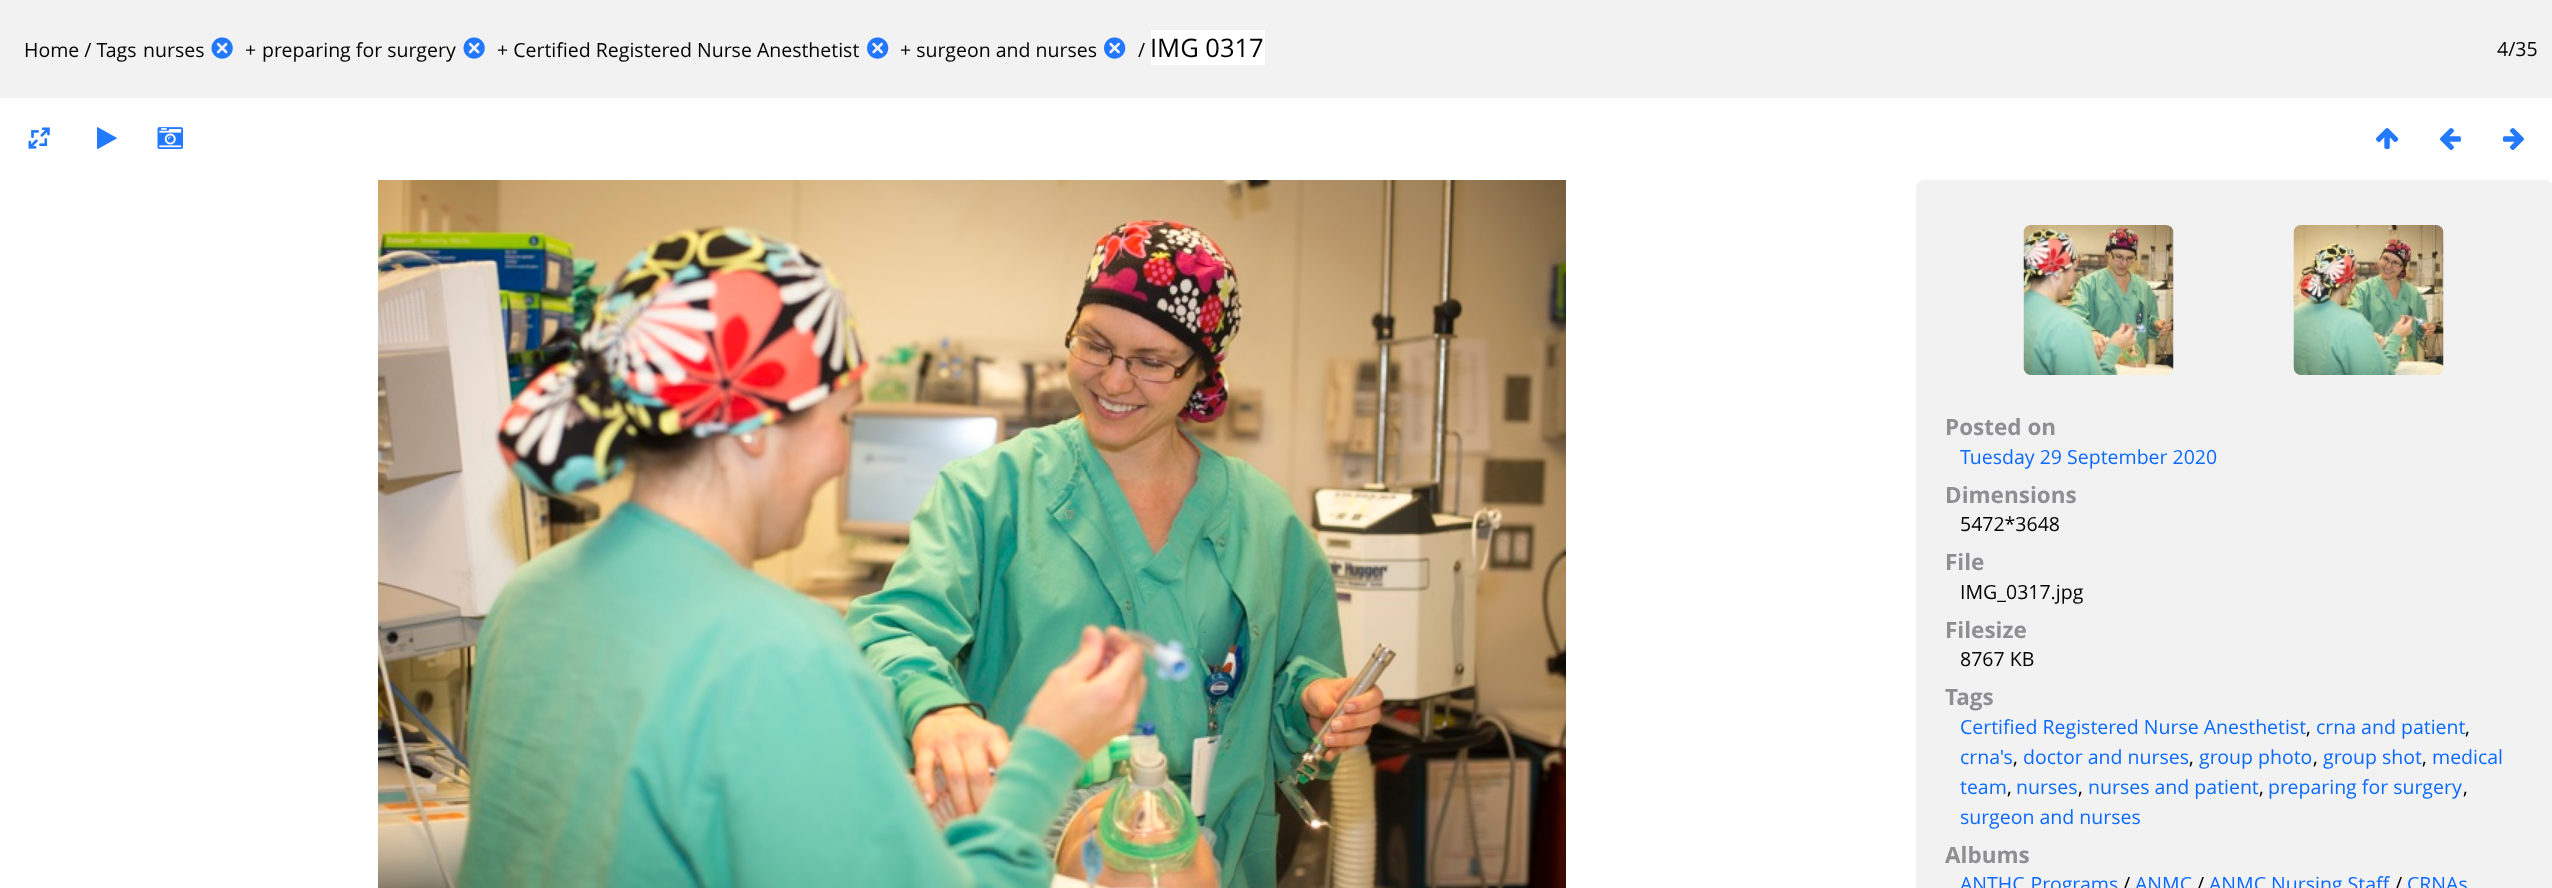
<!DOCTYPE html>
<meta charset="utf-8">
<style>body { margin: 0 } canvas { display: block }</style>
<canvas id="canvas" width="2552" height="888"></canvas>
<script type="module">
  const canvas = document.getElementById("canvas");
  const g = canvas.getContext("2d");
  g.miterLimit = 4;
  g.fontKerning = "normal";
  function drawText(s, x, y, [font, color]) {
    g.font = font;
    g.fillStyle = color;
    g.fillText(s, x, y);
  }
  function fillBox(x, y, w, h, color) {
    g.fillStyle = color;
    g.fillRect(x, y, w, h);
  }
  function fillRounded(x, y, w, h, r, color) {
    g.fillStyle = color;
    g.beginPath();
    g.roundRect(x, y, w, h, r);
    g.fill();
  }
  async function drawPicture(src, x, y, w, h) {
    const img = new Image();
    img.src = src;
    await img.decode();
    g.drawImage(img, x, y, w, h);
  }

  const s1 = ["19.5px Open Sans", "#000000"];
  const s2 = ["25.5px Open Sans", "#000000"];
  const s3 = ["25.5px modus", "#2379FF"];
  const s4 = ["bold 22.5px Open Sans", "#8E8E93"];
  const s5 = ["19.5px Open Sans", "#0B6AFF"];

  fillBox(0, 0, 2552, 888, "#FFFFFF");
  fillBox(0, 0, 2552, 98, "#F2F2F2");
  drawText("Home / Tags", 24, 57, s1);
  drawText("nurses", 143, 57, s1);
  await drawPicture("pic1.png", 211, 37, 22, 22);
  drawText("+", 245, 57, s1);
  drawText("preparing for surgery", 262, 57, s1);
  await drawPicture("pic1.png", 463, 37, 22, 22);
  drawText("+ Certified Registered Nurse Anesthetist", 497, 57, s1);
  await drawPicture("pic2.png", 867, 37, 22, 22);
  drawText("+ surgeon and nurses", 900, 57, s1);
  await drawPicture("pic2.png", 1104, 37, 22, 22);
  drawText("/", 1138, 57, s1);
  fillBox(1151, 30, 114, 35, "#FFFFFF");
  drawText("IMG 0317", 1150, 57, s2);
  drawText("4/35", 2497, 56, s1);
  await drawPicture("pic3.png", 28, 127, 22, 22);
  drawText("▶", 97, 147, s3);
  await drawPicture("pic4.png", 157, 127, 26, 22);
  drawText("↑", 2376, 147, s3);
  drawText("←", 2440, 147, s3);
  drawText("→", 2503, 147, s3);
  await drawPicture("pic5.png", 378, 180, 1188, 708);
  fillRounded(1916, 180, 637, 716, 8, "#F2F2F2");
  await drawPicture("pic6.png", 2023, 225, 151, 150);
  await drawPicture("pic7.png", 2293, 225, 151, 150);
  drawText("Posted on", 1945, 435, s4);
  drawText("Tuesday 29 September 2020", 1960, 464, s5);
  drawText("Dimensions", 1945, 503, s4);
  drawText("5472*3648", 1960, 531, s1);
  drawText("File", 1945, 570, s4);
  drawText("IMG_0317.jpg", 1960, 599, s1);
  drawText("Filesize", 1945, 638, s4);
  drawText("8767 KB", 1960, 666, s1);
  drawText("Tags", 1945, 705, s4);
  drawText("Certified Registered Nurse Anesthetist", 1960, 734, s5);
  drawText(",", 2306, 734, s1);
  drawText("crna and patient", 2316, 734, s5);
  drawText(",", 2465, 734, s1);
  drawText("crna's", 1960, 764, s5);
  drawText(",", 2013, 764, s1);
  drawText("doctor and nurses", 2023, 764, s5);
  drawText(",", 2189, 764, s1);
  drawText("group photo", 2199, 764, s5);
  drawText(",", 2313, 764, s1);
  drawText("group shot", 2323, 764, s5);
  drawText(",", 2422, 764, s1);
  drawText("medical", 2432, 764, s5);
  drawText("team", 1960, 794, s5);
  drawText(",", 2007, 794, s1);
  drawText("nurses", 2016, 794, s5);
  drawText(",", 2078, 794, s1);
  drawText("nurses and patient", 2088, 794, s5);
  drawText(",", 2259, 794, s1);
  drawText("preparing for surgery", 2268, 794, s5);
  drawText(",", 2463, 794, s1);
  drawText("surgeon and nurses", 1960, 824, s5);
  drawText("Albums", 1945, 863, s4);
  g.wordSpacing = "1px";
  drawText("ANTHC Programs", 1960, 891, s5);
  g.wordSpacing = "0px";
  drawText("/", 2123, 891, s1);
  drawText("ANMC", 2135, 891, s5);
  drawText("/", 2197, 891, s1);
  drawText("ANMC Nursing Staff", 2209, 891, s5);
  drawText("/", 2395, 891, s1);
  drawText("CRNAs", 2407, 891, s5);
</script>
